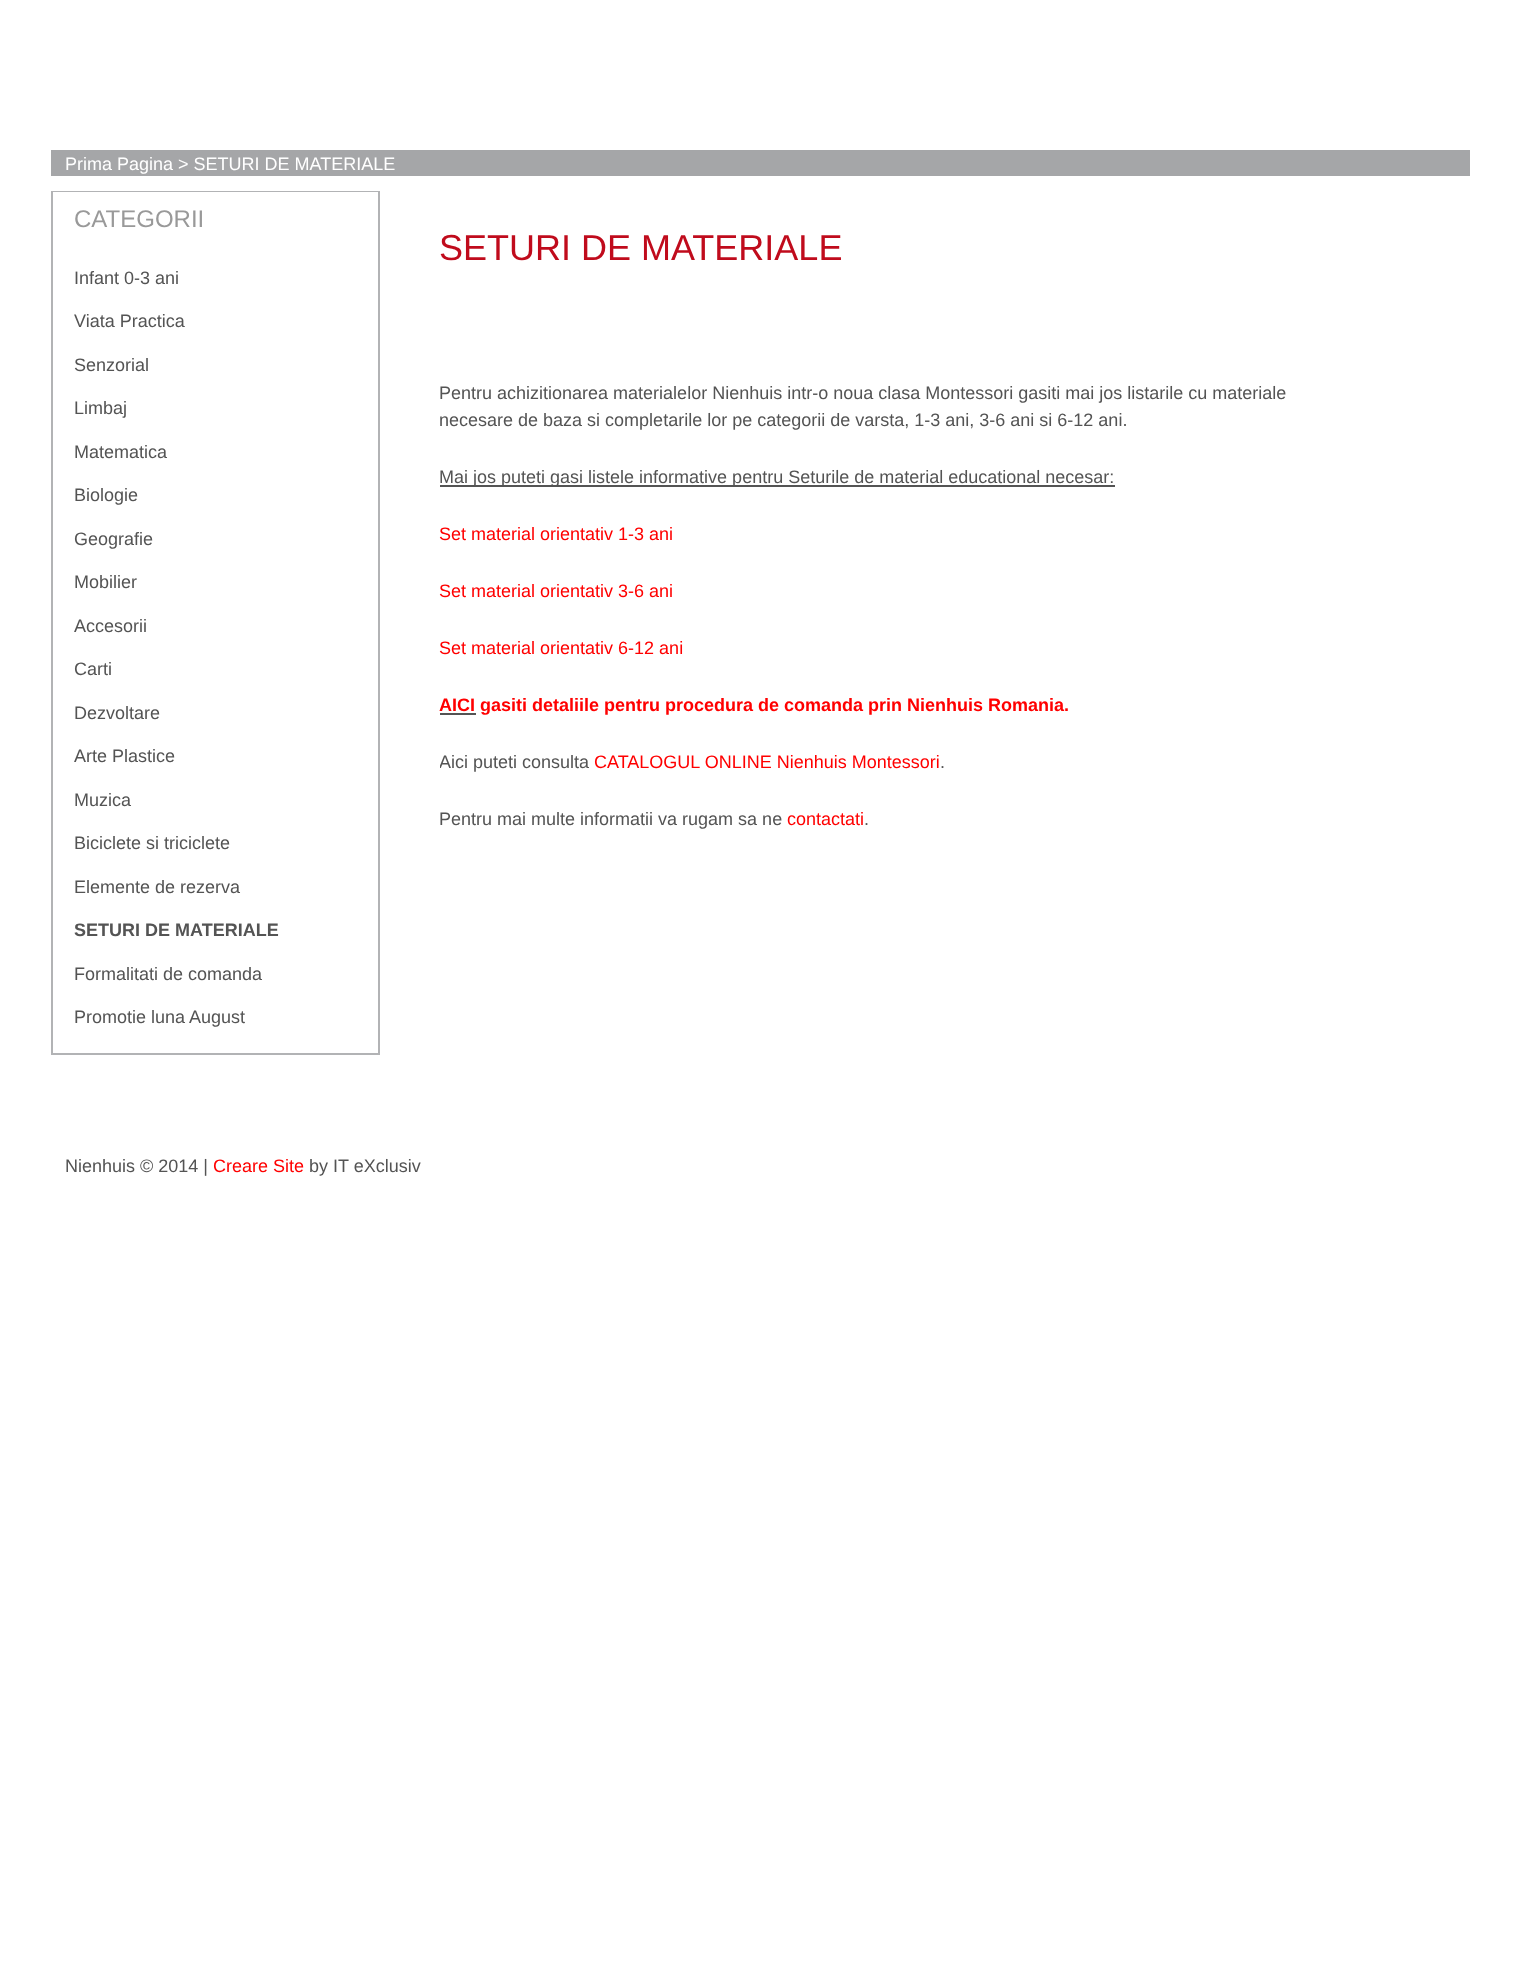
<!DOCTYPE html>
<meta charset="utf-8">
<style>body { margin: 0 } canvas { display: block }</style>
<canvas id="canvas" width="1540" height="1962"></canvas>
<script type="module">
  const canvas = document.getElementById("canvas");
  const g = canvas.getContext("2d");
  g.miterLimit = 4;
  g.fontKerning = "normal";
  function drawText(s, x, y, [font, color]) {
    g.font = font;
    g.fillStyle = color;
    g.fillText(s, x, y);
  }
  function fillBox(x, y, w, h, color) {
    g.fillStyle = color;
    g.fillRect(x, y, w, h);
  }

  const s1 = ["18px Liberation Sans", "#FFFFFF"];
  const s2 = ["24px Liberation Sans", "#999999"];
  const s3 = ["18px Liberation Sans", "#545454"];
  const s4 = ["bold 18px Liberation Sans", "#545454"];
  const s5 = ["36px Liberation Sans", "#C00B1C"];
  const s6 = ["18px Liberation Sans", "#FF0000"];
  const s7 = ["bold 18px Liberation Sans", "#FF0000"];

  fillBox(0, 0, 1540, 1962, "#FFFFFF");
  fillBox(51, 150, 1419, 26, "#A5A6A8");
  drawText("Prima Pagina > SETURI DE MATERIALE", 65, 170, s1);
  g.strokeStyle = "#B2B3B5";
  g.lineWidth = 2;
  g.strokeRect(52, 192, 327, 862);
  fillBox(53, 192, 325, 1, "#FFFFFF");
  drawText("CATEGORII", 74, 227, s2);
  drawText("Infant 0-3 ani", 74, 284, s3);
  drawText("Viata Practica", 74, 327, s3);
  drawText("Senzorial", 74, 371, s3);
  drawText("Limbaj", 74, 414, s3);
  drawText("Matematica", 74, 458, s3);
  drawText("Biologie", 74, 501, s3);
  drawText("Geografie", 74, 545, s3);
  drawText("Mobilier", 74, 588, s3);
  drawText("Accesorii", 74, 632, s3);
  drawText("Carti", 74, 675, s3);
  drawText("Dezvoltare", 74, 719, s3);
  drawText("Arte Plastice", 74, 762, s3);
  drawText("Muzica", 74, 806, s3);
  drawText("Biciclete si triciclete", 74, 849, s3);
  drawText("Elemente de rezerva", 74, 893, s3);
  drawText("SETURI DE MATERIALE", 74, 936, s4);
  drawText("Formalitati de comanda", 74, 980, s3);
  drawText("Promotie luna August", 74, 1023, s3);
  drawText("SETURI DE MATERIALE", 439, 260, s5);
  drawText("Pentru achizitionarea materialelor Nienhuis intr-o noua clasa Montessori gasiti mai jos listarile cu materiale", 439, 399, s3);
  drawText("necesare de baza si completarile lor pe categorii de varsta, 1-3 ani, 3-6 ani si 6-12 ani.", 439, 426, s3);
  fillBox(440, 485, 675, 2, "#545454");
  drawText("Mai jos puteti gasi listele informative pentru Seturile de material educational necesar:", 439, 483, s3);
  drawText("Set material orientativ 1-3 ani", 439, 540, s6);
  drawText("Set material orientativ 3-6 ani", 439, 597, s6);
  drawText("Set material orientativ 6-12 ani", 439, 654, s6);
  fillBox(440, 713, 36, 2, "#545454");
  drawText("AICI gasiti detaliile pentru procedura de comanda prin Nienhuis Romania.", 439, 711, s7);
  g.save();
  g.beginPath();
  g.rect(440, 296, 915, 681);
  g.clip();
  drawText("Aici puteti consulta", 439, 768, s3);
  g.restore();
  drawText("CATALOGUL ONLINE Nienhuis Montessori", 594, 768, s6);
  drawText(".", 940, 768, s3);
  drawText("Pentru mai multe informatii va rugam sa ne", 439, 825, s3);
  drawText("contactati", 787, 825, s6);
  drawText(".", 864, 825, s3);
  drawText("Nienhuis © 2014 |", 65, 1172, s3);
  drawText("Creare Site", 213, 1172, s6);
  drawText("by IT eXclusiv", 309, 1172, s3);
</script>
